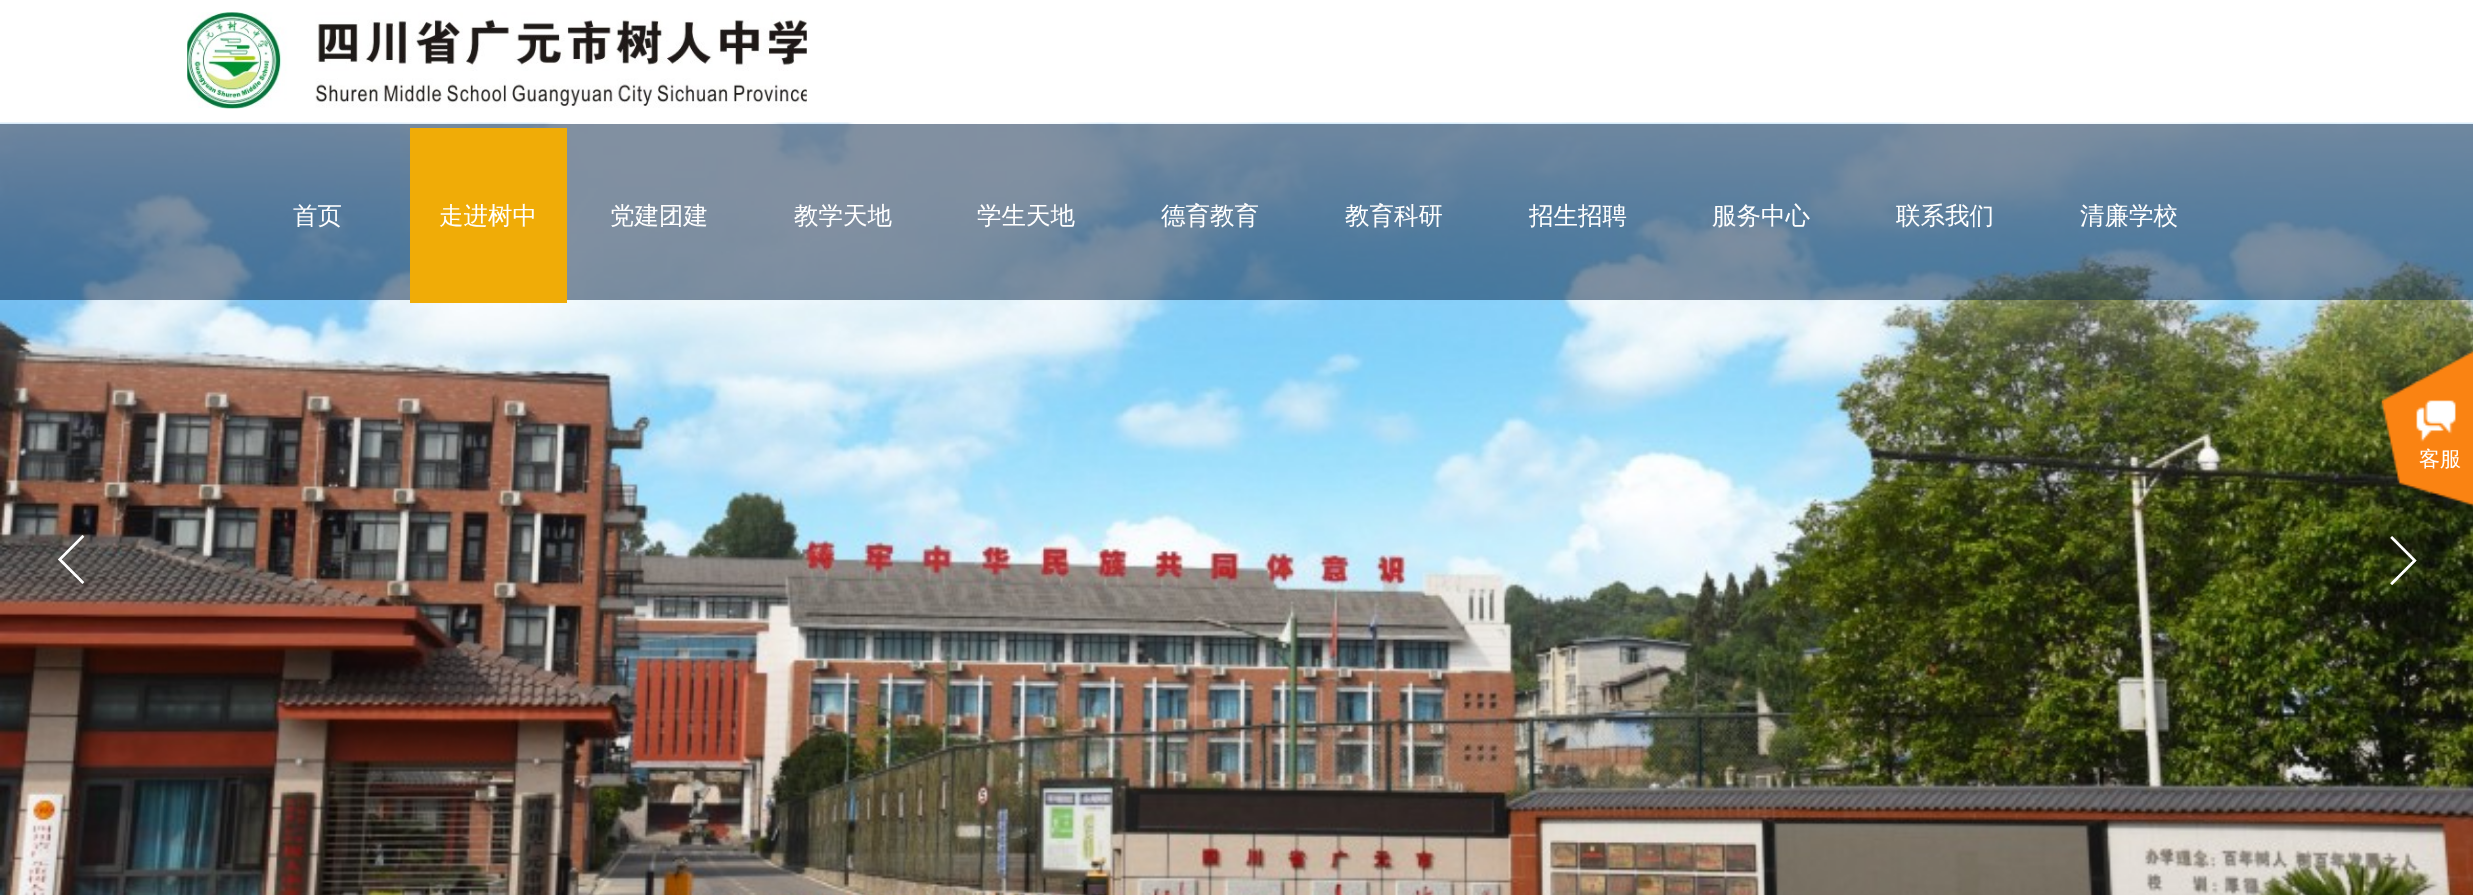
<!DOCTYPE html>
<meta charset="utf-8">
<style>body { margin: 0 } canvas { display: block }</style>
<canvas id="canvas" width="2473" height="895"></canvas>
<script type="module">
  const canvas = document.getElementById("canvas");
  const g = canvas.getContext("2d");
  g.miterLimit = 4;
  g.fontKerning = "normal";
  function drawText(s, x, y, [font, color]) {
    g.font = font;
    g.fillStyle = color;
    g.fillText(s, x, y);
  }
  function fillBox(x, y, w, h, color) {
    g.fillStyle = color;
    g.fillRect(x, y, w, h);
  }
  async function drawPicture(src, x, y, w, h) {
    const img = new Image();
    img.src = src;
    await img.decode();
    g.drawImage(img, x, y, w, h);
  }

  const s1 = ["500 24.5px WenQuanYi Zen Hei", "#FFFFFF"];
  const s2 = ["500 21px WenQuanYi Zen Hei", "#FFFFFF"];

  fillBox(0, 0, 2473, 895, "#FFFFFF");
  await drawPicture("pic1.png", 187, 12, 620, 97);
  await drawPicture("pic2.png", 0, 122, 2473, 773);
  await drawPicture("pic3.png", 58, 535, 27, 49);
  await drawPicture("pic4.png", 2390, 536, 27, 49);
  fillBox(0, 124, 2473, 176, "rgba(6, 34, 68, 0.5)");
  drawText("首页", 293, 224, s1);
  fillBox(410, 128, 157, 175, "#F0AC07");
  drawText("走进树中", 439, 224, s1);
  drawText("党建团建", 610, 224, s1);
  drawText("教学天地", 794, 224, s1);
  drawText("学生天地", 977, 224, s1);
  drawText("德育教育", 1161, 224, s1);
  drawText("教育科研", 1345, 224, s1);
  drawText("招生招聘", 1529, 224, s1);
  drawText("服务中心", 1712, 224, s1);
  drawText("联系我们", 1896, 224, s1);
  drawText("清廉学校", 2080, 224, s1);
  await drawPicture("pic5.png", 2381, 350, 92, 157);
  drawText("客服", 2419, 466, s2);
</script>
